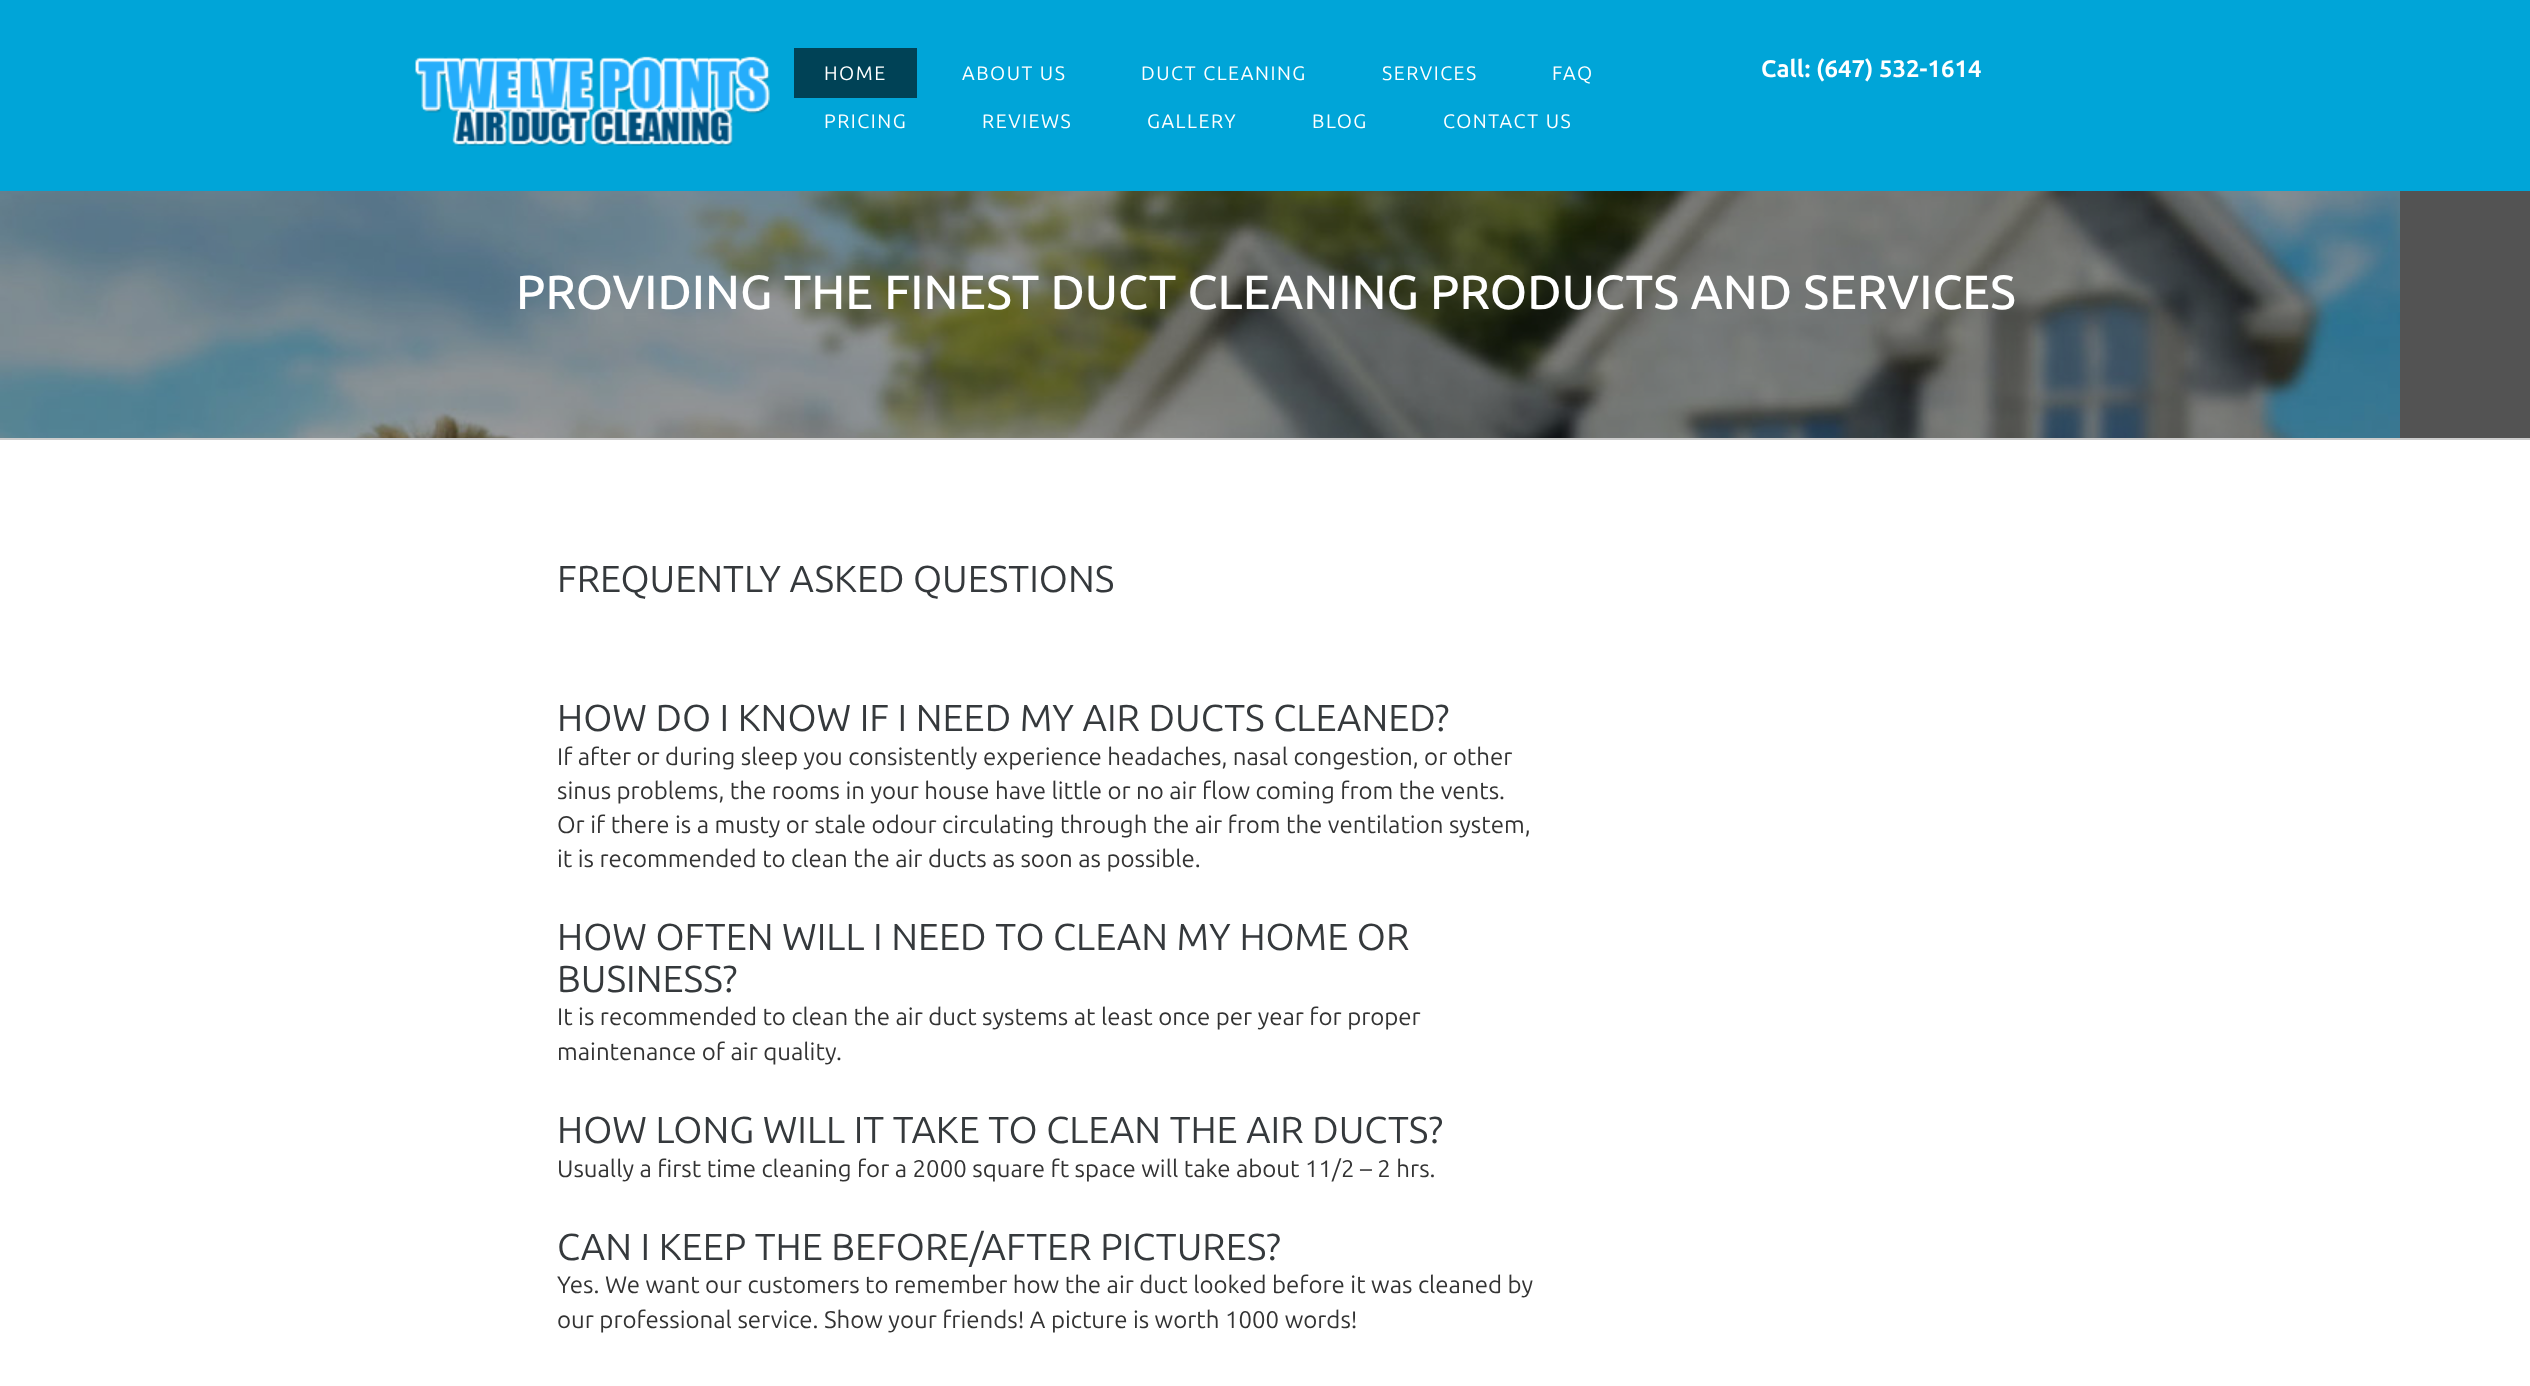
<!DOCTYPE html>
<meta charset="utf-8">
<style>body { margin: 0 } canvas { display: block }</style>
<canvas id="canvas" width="2530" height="1386"></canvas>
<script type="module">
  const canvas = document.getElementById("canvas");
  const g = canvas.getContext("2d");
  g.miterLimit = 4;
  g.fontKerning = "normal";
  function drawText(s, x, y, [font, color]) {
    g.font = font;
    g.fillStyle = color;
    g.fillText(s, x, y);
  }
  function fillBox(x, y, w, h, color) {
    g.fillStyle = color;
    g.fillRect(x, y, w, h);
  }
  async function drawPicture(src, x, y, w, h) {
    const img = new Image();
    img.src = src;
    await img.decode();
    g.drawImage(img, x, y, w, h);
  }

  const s1 = ["19.5px Ubuntu", "#FFFFFF"];
  const s2 = ["bold 24px Ubuntu", "#FFFFFF"];
  const s3 = ["500 48px Ubuntu", "#FFFFFF"];
  const s4 = ["37.5px Ubuntu", "#35393C"];
  const s5 = ["24px Ubuntu", "#333333"];

  fillBox(0, 0, 2530, 1386, "#FFFFFF");
  fillBox(2400, 191, 130, 247, "#8A8A8A");
  await drawPicture("pic1.png", 0, 191, 2400, 247);
  fillBox(0, 0, 2530, 191, "#00A5D8");
  await drawPicture("pic2.png", 415, 56, 355, 90);
  fillBox(794, 48, 123, 50, "#004256");
  g.letterSpacing = "1.5px";
  drawText("HOME", 824, 80, s1);
  drawText("ABOUT US", 962, 80, s1);
  drawText("DUCT CLEANING", 1141, 80, s1);
  drawText("SERVICES", 1382, 80, s1);
  drawText("FAQ", 1552, 80, s1);
  drawText("PRICING", 824, 128, s1);
  drawText("REVIEWS", 982, 128, s1);
  drawText("GALLERY", 1147, 128, s1);
  drawText("BLOG", 1312, 128, s1);
  drawText("CONTACT US", 1443, 128, s1);
  g.letterSpacing = "0px";
  drawText("Call: (647) 532-1614", 1761, 77, s2);
  fillBox(0, 191, 2530, 247, "rgba(0, 0, 0, 0.4)");
  drawText("PROVIDING THE FINEST DUCT CLEANING PRODUCTS AND SERVICES", 516, 309, s3);
  fillBox(0, 438, 2530, 2, "#CCCCCC");
  drawText("FREQUENTLY ASKED QUESTIONS", 557, 592, s4);
  drawText("HOW DO I KNOW IF I NEED MY AIR DUCTS CLEANED?", 557, 731, s4);
  drawText("If after or during sleep you consistently experience headaches, nasal congestion, or other", 557, 765, s5);
  drawText("sinus problems, the rooms in your house have little or no air flow coming from the vents.", 557, 799, s5);
  drawText("Or if there is a musty or stale odour circulating through the air from the ventilation system,", 557, 833, s5);
  drawText("it is recommended to clean the air ducts as soon as possible.", 557, 867, s5);
  drawText("HOW OFTEN WILL I NEED TO CLEAN MY HOME OR", 557, 950, s4);
  drawText("BUSINESS?", 557, 992, s4);
  drawText("It is recommended to clean the air duct systems at least once per year for proper", 557, 1025, s5);
  drawText("maintenance of air quality.", 557, 1060, s5);
  drawText("HOW LONG WILL IT TAKE TO CLEAN THE AIR DUCTS?", 557, 1143, s4);
  drawText("Usually a first time cleaning for a 2000 square ft space will take about 11/2 – 2 hrs.", 557, 1177, s5);
  drawText("CAN I KEEP THE BEFORE/AFTER PICTURES?", 557, 1260, s4);
  drawText("Yes. We want our customers to remember how the air duct looked before it was cleaned by", 557, 1293, s5);
  drawText("our professional service. Show your friends! A picture is worth 1000 words!", 557, 1328, s5);
</script>
